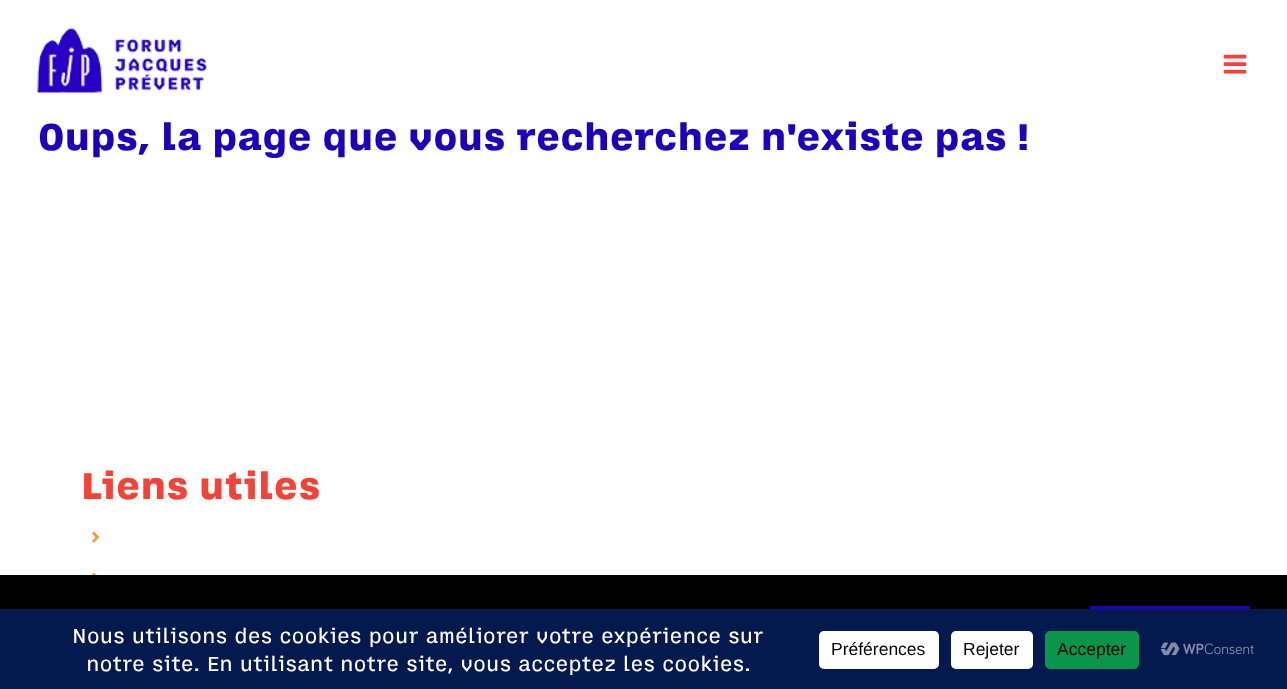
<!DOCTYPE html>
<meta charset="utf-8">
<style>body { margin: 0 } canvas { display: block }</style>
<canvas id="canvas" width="1287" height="689"></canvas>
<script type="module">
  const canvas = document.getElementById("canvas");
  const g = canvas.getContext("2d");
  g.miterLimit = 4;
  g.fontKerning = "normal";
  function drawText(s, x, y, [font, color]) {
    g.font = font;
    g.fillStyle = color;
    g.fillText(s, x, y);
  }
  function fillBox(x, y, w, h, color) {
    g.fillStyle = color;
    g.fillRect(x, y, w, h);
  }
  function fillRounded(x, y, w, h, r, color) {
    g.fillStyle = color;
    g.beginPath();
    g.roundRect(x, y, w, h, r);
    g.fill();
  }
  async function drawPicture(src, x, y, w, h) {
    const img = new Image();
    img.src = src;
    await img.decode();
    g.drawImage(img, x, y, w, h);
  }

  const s1 = ["bold 36.7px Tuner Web", "#1C00BD"];
  const s2 = ["bold 36.7px Tuner Web", "#F44336"];
  const s3 = ["20px Tuner Web", "#FFFFFF"];
  const s4 = ["17.5px Liberation Sans", "#000000"];

  fillBox(0, 0, 1287, 689, "#FFFFFF");
  await drawPicture("pic1.png", 37, 28, 170, 65);
  await drawPicture("pic2.png", 1223, 54, 24, 20);
  drawText("Oups, la page que vous recherchez n'existe pas !", 38, 150, s1);
  drawText("Liens utiles", 81, 499, s2);
  await drawPicture("pic3.png", 92, 531, 8, 12);
  await drawPicture("pic4.png", 92, 573, 4, 2);
  fillBox(0, 575, 1287, 34, "#020202");
  g.strokeStyle = "#1C00BD";
  g.lineWidth = 3;
  g.strokeRect(1091.5, 607.5, 157, 50);
  fillBox(0, 609, 1287, 80, "#04194E");
  drawText("Nous utilisons des cookies pour améliorer votre expérience sur", 72, 643, s3);
  drawText("notre site. En utilisant notre site, vous acceptez les cookies.", 86, 671, s3);
  fillRounded(819, 631, 120, 38, 5, "#FFFFFF");
  drawText("Préférences", 831, 655, s4);
  fillRounded(951, 631, 82, 38, 5, "#FFFFFF");
  drawText("Rejeter", 963, 655, s4);
  fillRounded(1045, 631, 94, 38, 5, "#09954A");
  drawText("Accepter", 1057, 655, s4);
  await drawPicture("pic5.png", 1160, 642, 94, 14);
</script>
